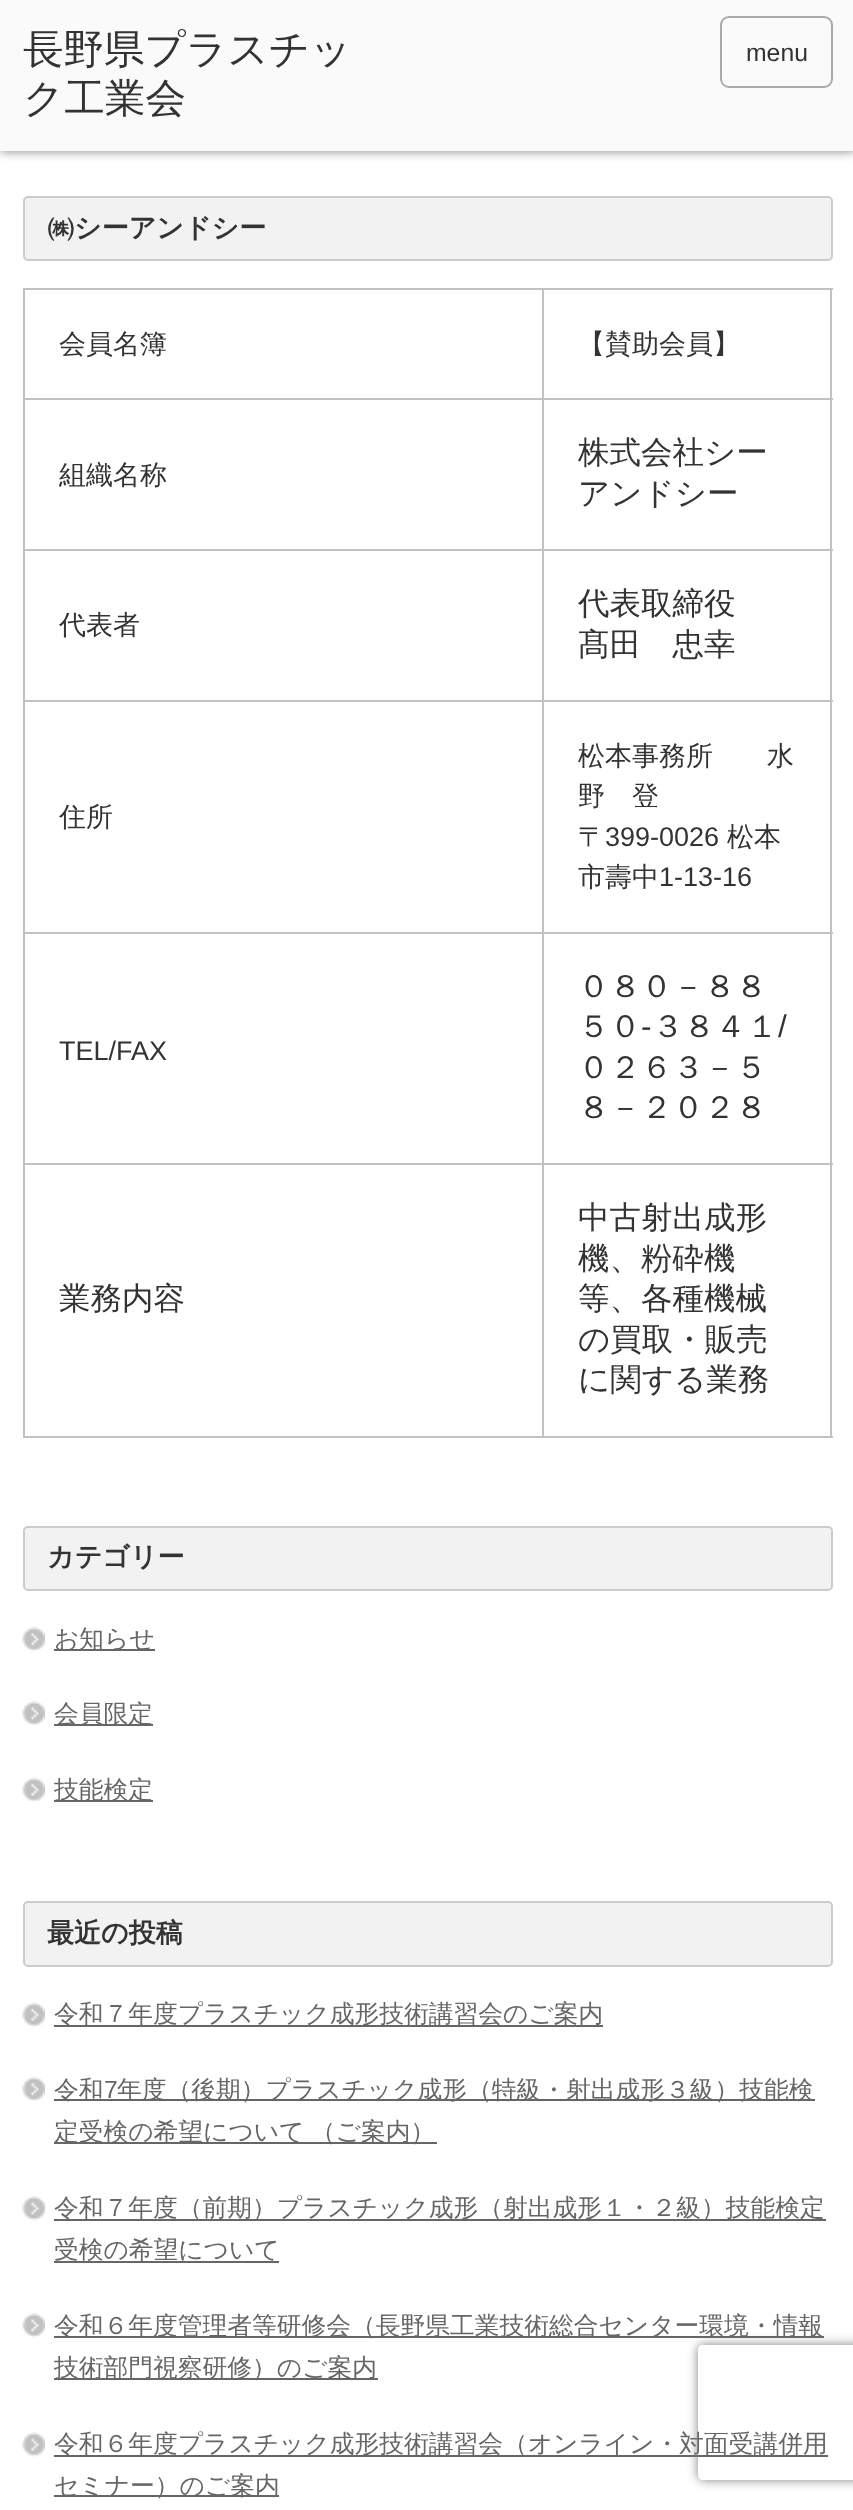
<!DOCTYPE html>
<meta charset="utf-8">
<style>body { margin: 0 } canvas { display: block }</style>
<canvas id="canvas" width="853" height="2510"></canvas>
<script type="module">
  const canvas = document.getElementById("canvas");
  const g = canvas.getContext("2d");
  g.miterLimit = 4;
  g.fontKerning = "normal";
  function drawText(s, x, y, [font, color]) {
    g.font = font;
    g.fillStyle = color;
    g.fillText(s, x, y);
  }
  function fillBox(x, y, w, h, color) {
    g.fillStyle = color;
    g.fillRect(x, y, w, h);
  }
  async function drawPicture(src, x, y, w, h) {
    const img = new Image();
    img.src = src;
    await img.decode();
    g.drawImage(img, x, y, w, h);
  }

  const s1 = ["500 40.5px WenQuanYi Zen Hei", "#333333"];
  const s2 = ["24.75px Liberation Sans", "#333333"];
  const s3 = ["bold 27px WenQuanYi Zen Hei", "#333333"];
  const s4 = ["500 27px WenQuanYi Zen Hei", "#333333"];
  const s5 = ["500 31.5px WenQuanYi Zen Hei", "#333333"];
  const s6 = ["27px Liberation Sans", "#333333"];
  const s7 = ["31.5px Liberation Sans", "#333333"];
  const s8 = ["500 24.75px WenQuanYi Zen Hei", "#666666"];
  const s9 = ["24.75px Liberation Sans", "#666666"];

  fillBox(0, 0, 853, 2510, "#FFFFFF");
  g.fillStyle = "rgba(0, 0, 0, 0.5)";
  g.filter = "blur(5.5px)";
  g.beginPath();
  g.rect(0, 0, 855, 151);
  g.fill();
  g.filter = "none";
  fillBox(0, 0, 853, 151, "#FAFAFA");
  drawText("長野県プラスチッ", 23, 63, s1);
  drawText("ク工業会", 23, 112, s1);
  g.beginPath();
  g.roundRect(721, 17, 111, 70, 8);
  g.strokeStyle = "#AAAAAA";
  g.lineWidth = 2;
  g.stroke();
  drawText("menu", 746, 61, s2);
  g.fillStyle = "#F2F2F2";
  g.beginPath();
  g.roundRect(24, 197, 808, 63, 4);
  g.fill();
  g.strokeStyle = "#CCCCCC";
  g.stroke();
  drawText("㈱シーアンドシー", 47, 237, s3);
  fillBox(542, 288, 291, 2, "#C1C1C1");
  fillBox(542, 398, 291, 2, "#C1C1C1");
  fillBox(542, 549, 291, 2, "#C1C1C1");
  fillBox(542, 700, 291, 2, "#C1C1C1");
  fillBox(542, 932, 291, 2, "#C1C1C1");
  fillBox(542, 1163, 291, 2, "#C1C1C1");
  fillBox(830, 1163, 2, 275, "#C1C1C1");
  fillBox(542, 1436, 291, 2, "#C1C1C1");
  fillBox(542, 1163, 2, 275, "#C1C1C1");
  fillBox(23, 1163, 522, 2, "#C1C1C1");
  fillBox(542, 932, 2, 234, "#C1C1C1");
  fillBox(23, 932, 522, 2, "#C1C1C1");
  fillBox(542, 700, 2, 234, "#C1C1C1");
  fillBox(23, 700, 522, 2, "#C1C1C1");
  fillBox(542, 549, 2, 153, "#C1C1C1");
  fillBox(23, 549, 522, 2, "#C1C1C1");
  fillBox(542, 398, 2, 153, "#C1C1C1");
  fillBox(23, 398, 522, 2, "#C1C1C1");
  fillBox(542, 288, 2, 113, "#C1C1C1");
  fillBox(23, 288, 522, 2, "#C1C1C1");
  fillBox(23, 1436, 522, 2, "#C1C1C1");
  fillBox(23, 1163, 2, 275, "#C1C1C1");
  fillBox(23, 932, 2, 234, "#C1C1C1");
  fillBox(23, 700, 2, 234, "#C1C1C1");
  fillBox(23, 549, 2, 153, "#C1C1C1");
  fillBox(23, 398, 2, 153, "#C1C1C1");
  fillBox(23, 288, 2, 113, "#C1C1C1");
  drawText("会員名簿", 59, 353, s4);
  fillBox(830, 932, 2, 234, "#C1C1C1");
  fillBox(830, 700, 2, 234, "#C1C1C1");
  fillBox(830, 549, 2, 153, "#C1C1C1");
  fillBox(830, 398, 2, 153, "#C1C1C1");
  fillBox(830, 288, 2, 113, "#C1C1C1");
  drawText("【賛助会員】", 578, 353, s4);
  drawText("組織名称", 59, 484, s4);
  drawText("株式会社シー", 578, 463, s5);
  drawText("アンドシー", 578, 504, s5);
  drawText("代表者", 59, 634, s4);
  drawText("代表取締役", 578, 614, s5);
  drawText("髙田　忠幸", 578, 655, s5);
  drawText("住所", 59, 826, s4);
  drawText("松本事務所　　水", 578, 765, s4);
  drawText("野　登", 578, 805, s4);
  drawText("〒", 578, 846, s4);
  drawText("399-0026", 605, 846, s6);
  drawText("松本", 727, 846, s4);
  drawText("市壽中", 578, 886, s4);
  drawText("1-13-16", 659, 886, s6);
  drawText("TEL/FAX", 59, 1060, s6);
  drawText("０８０－８８", 578, 997, s5);
  drawText("５０", 578, 1037, s5);
  drawText("-", 641, 1037, s7);
  drawText("３８４１", 652, 1037, s5);
  drawText("/", 778, 1037, s7);
  drawText("０２６３－５", 578, 1078, s5);
  drawText("８－２０２８", 578, 1118, s5);
  drawText("業務内容", 59, 1309, s5);
  drawText("中古射出成形", 578, 1228, s5);
  drawText("機、粉砕機", 578, 1269, s5);
  drawText("等、各種機械", 578, 1309, s5);
  drawText("の買取・販売", 578, 1350, s5);
  drawText("に関する業務", 578, 1390, s5);
  g.fillStyle = "#F2F2F2";
  g.beginPath();
  g.roundRect(24, 1527, 808, 63, 4);
  g.fill();
  g.stroke();
  drawText("カテゴリー", 47, 1566, s3);
  await drawPicture("pic1.png", 22, 1626, 23, 26);
  fillBox(54, 1649, 101, 2, "#666666");
  drawText("お知らせ", 54, 1647, s8);
  await drawPicture("pic2.png", 22, 1701, 23, 25);
  fillBox(54, 1724, 99, 2, "#666666");
  drawText("会員限定", 54, 1722, s8);
  await drawPicture("pic3.png", 22, 1777, 23, 25);
  fillBox(54, 1800, 99, 2, "#666666");
  drawText("技能検定", 54, 1798, s8);
  g.fillStyle = "#F2F2F2";
  g.beginPath();
  g.roundRect(24, 1902, 808, 64, 4);
  g.fill();
  g.stroke();
  drawText("最近の投稿", 47, 1942, s3);
  await drawPicture("pic3.png", 22, 2002, 23, 25);
  fillBox(54, 2025, 549, 2, "#666666");
  drawText("令和７年度プラスチック成形技術講習会のご案内", 54, 2022, s8);
  await drawPicture("pic1.png", 22, 2076, 23, 26);
  fillBox(54, 2099, 761, 2, "#666666");
  drawText("令和", 54, 2098, s8);
  drawText("7", 104, 2098, s9);
  drawText("年度（後期）プラスチック成形（特級・射出成形３級）技能検", 117, 2098, s8);
  fillBox(54, 2142, 383, 2, "#666666");
  g.wordSpacing = "-1px";
  drawText("定受検の希望について （ご案内）", 54, 2140, s8);
  await drawPicture("pic2.png", 22, 2196, 23, 25);
  fillBox(54, 2219, 772, 2, "#666666");
  g.wordSpacing = "0px";
  drawText("令和７年度（前期）プラスチック成形（射出成形１・２級）技能検定", 54, 2216, s8);
  fillBox(54, 2261, 225, 2, "#666666");
  drawText("受検の希望について", 54, 2258, s8);
  await drawPicture("pic2.png", 22, 2313, 23, 25);
  fillBox(54, 2336, 770, 2, "#666666");
  drawText("令和６年度管理者等研修会（長野県工業技術総合センター環境・情報", 54, 2334, s8);
  fillBox(54, 2378, 324, 2, "#666666");
  drawText("技術部門視察研修）のご案内", 54, 2376, s8);
  await drawPicture("pic4.png", 22, 2432, 23, 25);
  fillBox(54, 2455, 774, 2, "#666666");
  drawText("令和６年度プラスチック成形技術講習会（オンライン・対面受講併用", 54, 2452, s8);
  fillBox(54, 2495, 225, 2, "#666666");
  drawText("セミナー）のご案内", 54, 2494, s8);
  g.save();
  g.beginPath();
  g.moveTo(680, 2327);
  g.lineTo(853, 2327);
  g.lineTo(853, 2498);
  g.lineTo(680, 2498);
  g.closePath();
  g.moveTo(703, 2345);
  g.lineTo(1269, 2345);
  g.bezierCurveTo(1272, 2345, 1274, 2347, 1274, 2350);
  g.lineTo(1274, 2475);
  g.bezierCurveTo(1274, 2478, 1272, 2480, 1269, 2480);
  g.lineTo(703, 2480);
  g.bezierCurveTo(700, 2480, 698, 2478, 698, 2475);
  g.lineTo(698, 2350);
  g.bezierCurveTo(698, 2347, 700, 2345, 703, 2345);
  g.closePath();
  g.clip("evenodd");
  g.fillStyle = "#808080";
  g.filter = "blur(5.5px)";
  g.beginPath();
  g.roundRect(698, 2345, 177, 135, 5);
  g.fill();
  g.filter = "none";
  g.restore();
</script>
